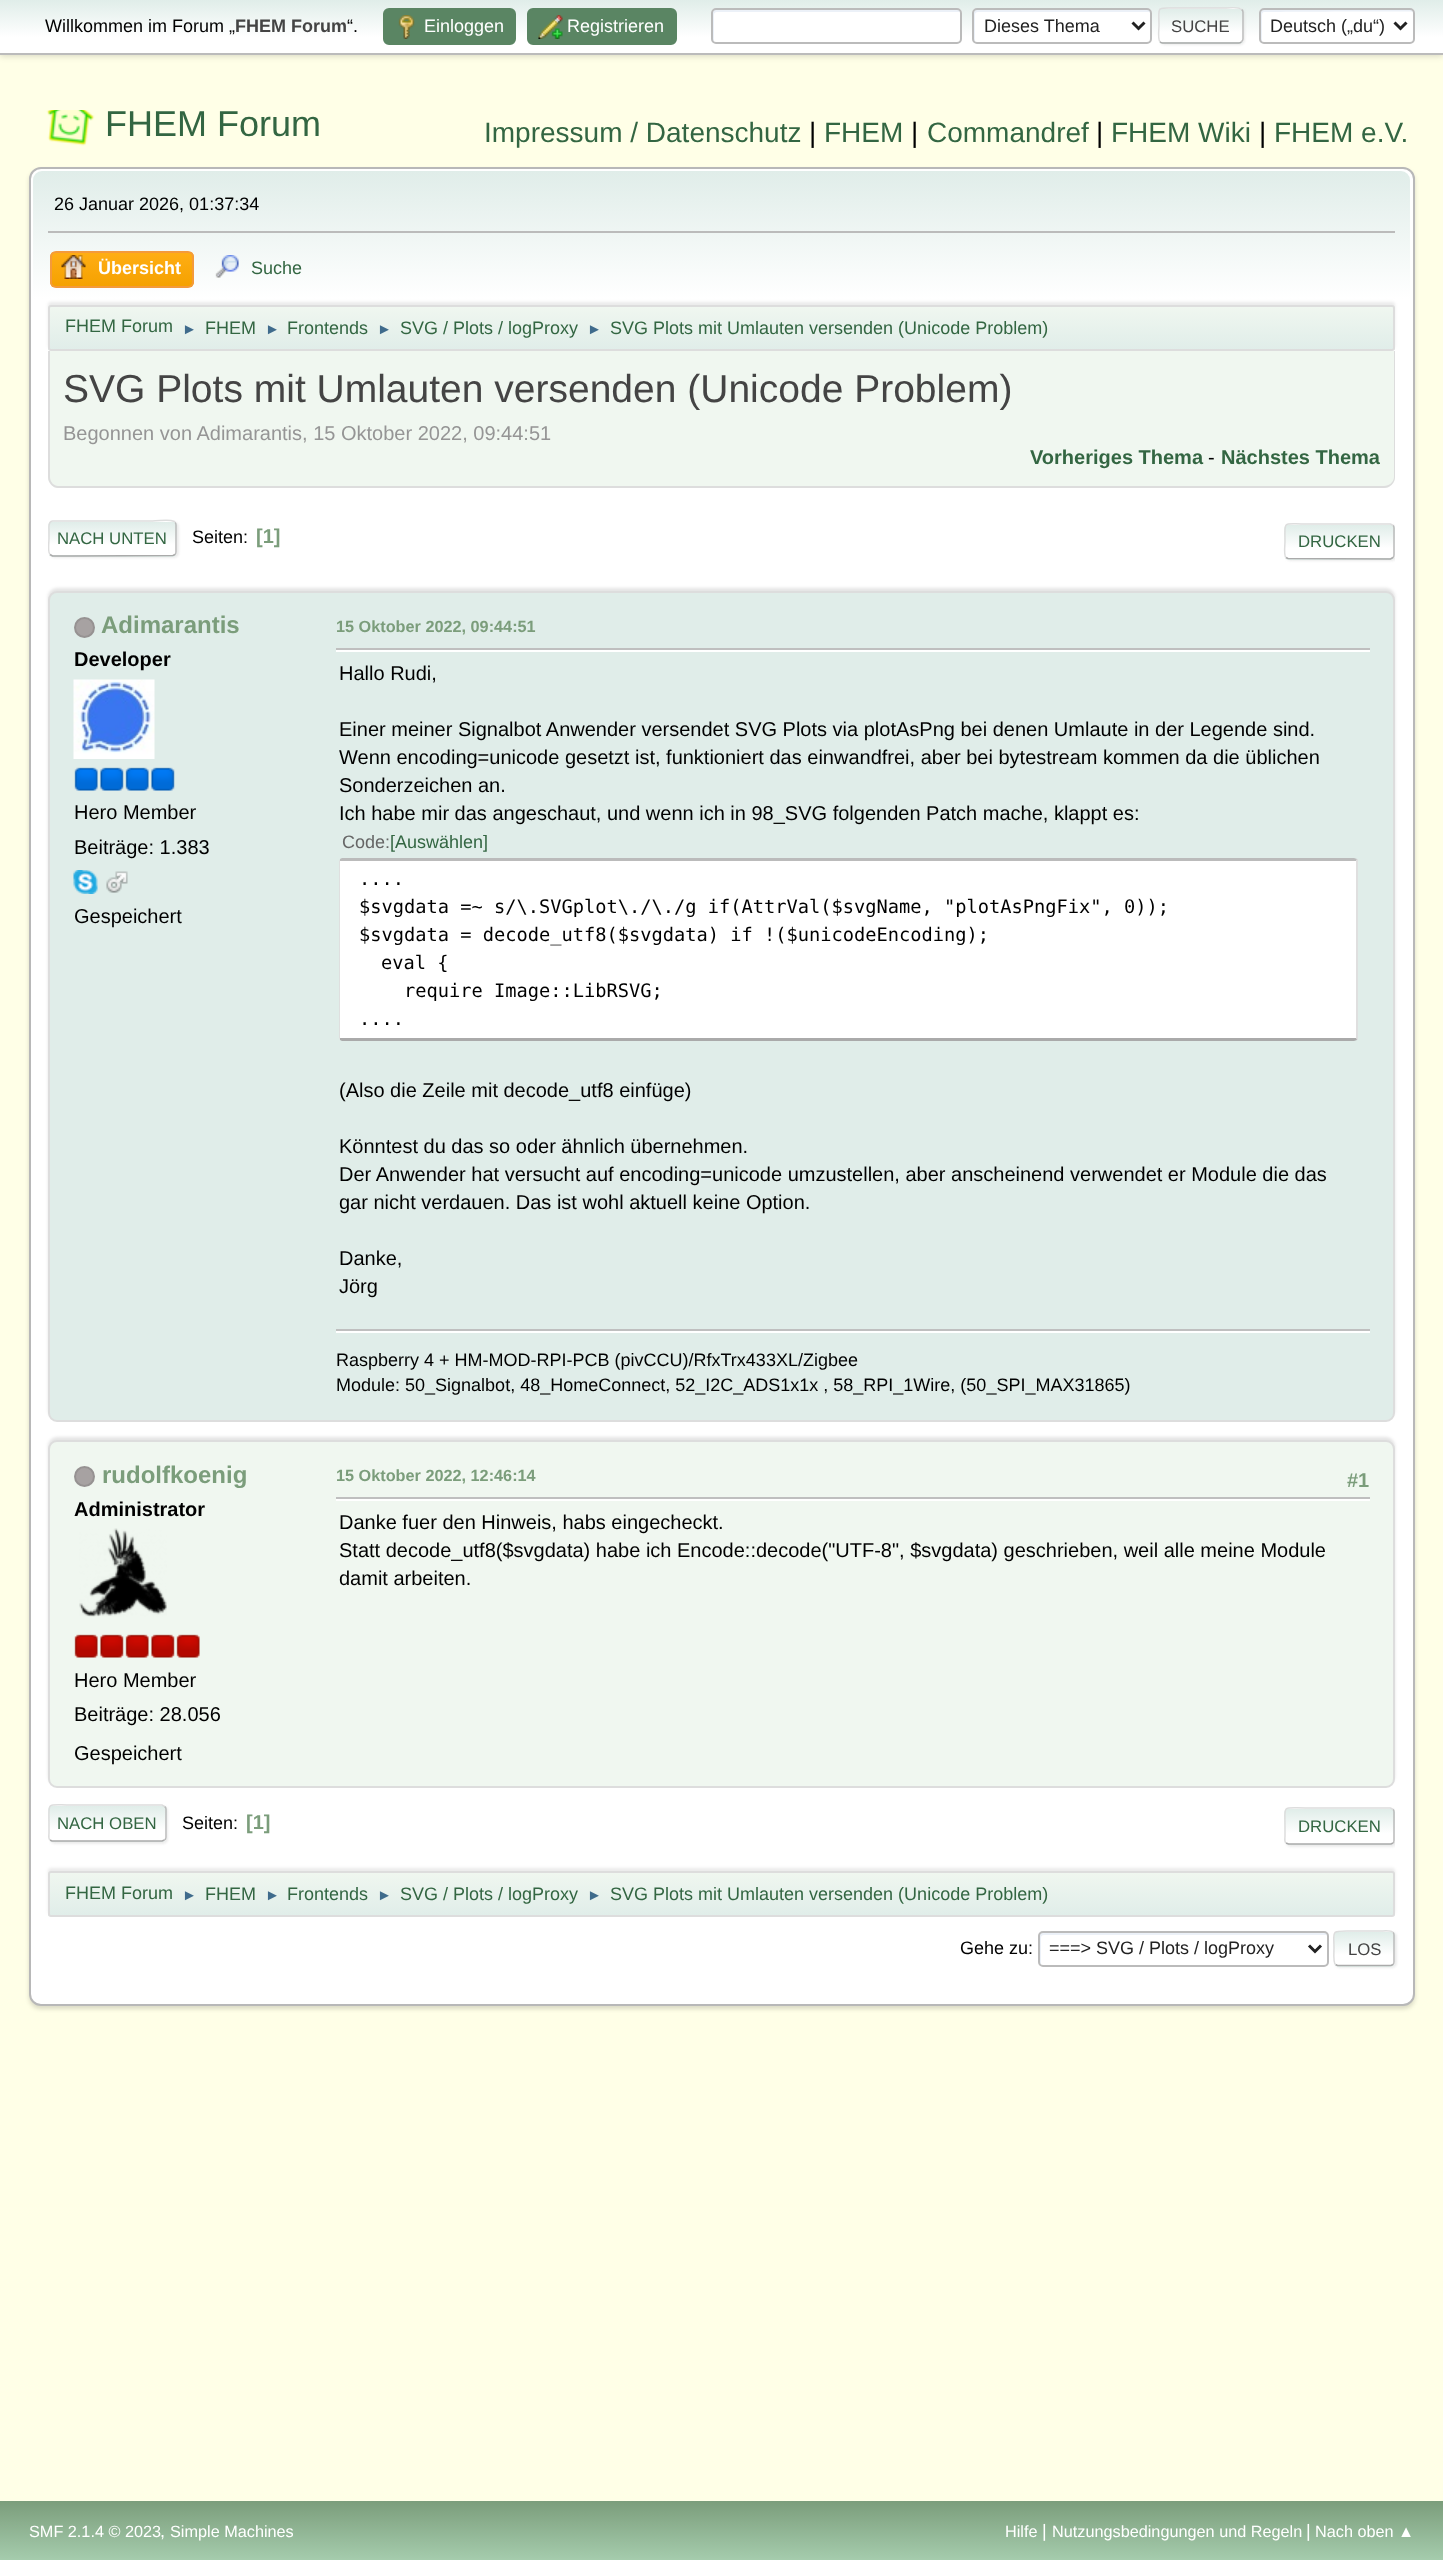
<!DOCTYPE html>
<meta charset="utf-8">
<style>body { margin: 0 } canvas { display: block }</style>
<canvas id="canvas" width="1443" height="2560"></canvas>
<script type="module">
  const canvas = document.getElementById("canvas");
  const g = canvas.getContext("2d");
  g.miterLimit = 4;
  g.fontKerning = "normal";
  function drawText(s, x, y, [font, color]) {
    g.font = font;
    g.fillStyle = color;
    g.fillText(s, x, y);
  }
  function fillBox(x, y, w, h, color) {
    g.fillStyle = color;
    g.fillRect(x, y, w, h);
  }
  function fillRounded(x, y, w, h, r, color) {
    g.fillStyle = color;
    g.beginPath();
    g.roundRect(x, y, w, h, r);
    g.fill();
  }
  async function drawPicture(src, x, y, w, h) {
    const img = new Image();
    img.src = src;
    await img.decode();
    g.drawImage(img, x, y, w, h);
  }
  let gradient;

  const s1 = ["18px Liberation Sans", "#000000"];
  const s2 = ["bold 18px Liberation Sans", "#444444"];
  const s3 = ["18px Liberation Sans", "#FFFFFF"];
  const s4 = ["18px Liberation Sans", "#222222"];
  const s5 = ["16.75px Liberation Sans", "#444444"];
  const s6 = ["36px Liberation Sans", "#336642"];
  const s7 = ["28px Liberation Sans", "#336642"];
  const s8 = ["28px Liberation Sans", "#000000"];
  const s9 = ["bold 18px Liberation Sans", "#FFFFFF"];
  const s10 = ["18px Liberation Sans", "#336642"];
  const s11 = ["15px Liberation Sans", "#3F6B8C"];
  const s12 = ["39px Liberation Sans", "#444444"];
  const s13 = ["20px Liberation Sans", "#959595"];
  const s14 = ["bold 20px Liberation Sans", "#336642"];
  const s15 = ["20px Liberation Sans", "#000000"];
  const s16 = ["16.75px Liberation Sans", "#336642"];
  const s17 = ["bold 20px Liberation Sans", "#7B9D7B"];
  const s18 = ["bold 24px Liberation Sans", "#7B9D7B"];
  const s19 = ["bold 20px Liberation Sans", "#000000"];
  const s20 = ["bold 16.25px Liberation Sans", "#7B9D7B"];
  const s21 = ["18px Liberation Sans", "#666666"];
  const s22 = ["18.7px DejaVu Sans Mono", "#000000"];
  const s23 = ["16.25px Liberation Sans", "#FFFFFF"];

  fillBox(0, 0, 1443, 2560, "#FFFFE7");
  g.fillStyle = "rgba(0, 0, 0, 0.16)";
  g.filter = "blur(3px)";
  g.beginPath();
  g.rect(0, 2, 1443, 54);
  g.fill();
  g.filter = "none";
  gradient = g.createLinearGradient(722, 0, 722, 53);
  gradient.addColorStop(0, "#E0EDE9");
  gradient.addColorStop(0.7, "#FFFFFF");
  g.fillStyle = gradient;
  g.fillRect(0, 0, 1443, 53);
  fillBox(0, 53, 1443, 2, "#BBBBBB");
  drawText("Willkommen im Forum „", 45, 32, s1);
  drawText("FHEM Forum", 235, 32, s2);
  drawText("“.", 347, 32, s1);
  g.fillStyle = "#5A8563";
  g.beginPath();
  g.roundRect(384, 9, 131, 35, 5);
  g.fill();
  g.strokeStyle = "#5A8563";
  g.lineWidth = 2;
  g.stroke();
  await drawPicture("pic1.png", 398, 15, 17, 24);
  drawText("Einloggen", 424, 32, s3);
  g.fillStyle = "#5A8563";
  g.beginPath();
  g.roundRect(528, 9, 148, 35, 5);
  g.fill();
  g.stroke();
  await drawPicture("pic2.png", 538, 15, 25, 24);
  drawText("Registrieren", 567, 32, s3);
  fillRounded(711, 8, 251, 36, 5, "#FFFFFF");
  g.fillStyle = "#ECF1F8";
  g.beginPath();
  g.moveTo(717, 12);
  g.lineTo(960, 12);
  g.bezierCurveTo(960, 10, 959, 9, 957, 9);
  g.lineTo(716, 9);
  g.bezierCurveTo(714, 9, 713, 10, 713, 12);
  g.lineTo(713, 39);
  g.bezierCurveTo(713, 40, 713, 41, 714, 41);
  g.lineTo(714, 15);
  g.bezierCurveTo(714, 13, 715, 12, 717, 12);
  g.closePath();
  g.fill();
  g.beginPath();
  g.roundRect(712, 9, 249, 34, 4);
  g.strokeStyle = "#BBBBBB";
  g.stroke();
  fillRounded(972, 8, 180, 36, 5, "#FFFFFF");
  g.fillStyle = "#ECF1F8";
  g.beginPath();
  g.moveTo(978, 12);
  g.lineTo(1149, 12);
  g.lineTo(1151, 13);
  g.lineTo(1151, 12);
  g.bezierCurveTo(1151, 10, 1150, 9, 1148, 9);
  g.lineTo(977, 9);
  g.bezierCurveTo(975, 9, 974, 10, 974, 12);
  g.lineTo(974, 39);
  g.bezierCurveTo(974, 40, 974, 41, 975, 41);
  g.lineTo(975, 15);
  g.bezierCurveTo(975, 13, 976, 12, 978, 12);
  g.closePath();
  g.fill();
  g.beginPath();
  g.roundRect(973, 9, 178, 34, 4);
  g.stroke();
  g.beginPath();
  g.moveTo(1132.5, 22.5);
  g.lineTo(1138.5, 28.5);
  g.lineTo(1144.5, 22.5);
  g.strokeStyle = "#222222";
  g.lineWidth = 3;
  g.stroke();
  drawText("Dieses Thema", 984, 32, s4);
  g.fillStyle = "rgba(221, 221, 221, 0.57)";
  g.filter = "blur(1px)";
  g.beginPath();
  g.roundRect(1160, 9, 85, 36, 5);
  g.fill();
  g.filter = "none";
  g.save();
  g.beginPath();
  g.roundRect(1158, 8, 86, 36, 5);
  g.clip();
  gradient = g.createLinearGradient(1201, -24, 1201, 9);
  gradient.addColorStop(0, "#E0EDE9");
  gradient.addColorStop(0.7, "#FFFFFF");
  g.fillStyle = gradient;
  g.fillRect(1158, 8, 86, 1);
  gradient = g.createLinearGradient(1201, 9, 1201, 42);
  gradient.addColorStop(0, "#E0EDE9");
  gradient.addColorStop(0.7, "#FFFFFF");
  g.fillStyle = gradient;
  g.fillRect(1158, 9, 86, 33);
  gradient = g.createLinearGradient(1201, 42, 1201, 75);
  gradient.addColorStop(0, "#E0EDE9");
  gradient.addColorStop(0.7, "#FFFFFF");
  g.fillStyle = gradient;
  g.fillRect(1158, 42, 86, 2);
  g.restore();
  g.beginPath();
  g.moveTo(1241.5, 9.5);
  g.bezierCurveTo(1242.5, 10, 1243, 11, 1243, 12);
  g.lineTo(1243, 39);
  g.bezierCurveTo(1243, 40, 1242.5, 41, 1241.5, 41.5);
  g.strokeStyle = "#BBBBBB";
  g.lineWidth = 1.5;
  g.stroke();
  g.beginPath();
  g.moveTo(1241.5, 41.5);
  g.bezierCurveTo(1241, 42.5, 1240, 43, 1239, 43);
  g.lineTo(1162.5, 43);
  g.bezierCurveTo(1161.5, 43, 1160.5, 42.5, 1160, 41.5);
  g.strokeStyle = "#AAAAAA";
  g.stroke();
  g.beginPath();
  g.moveTo(1160, 41.5);
  g.bezierCurveTo(1157.5, 39.5, 1159, 28.5, 1159, 25.5);
  g.bezierCurveTo(1159, 6, 1155.5, 8, 1175, 8);
  g.lineTo(1226, 8);
  g.bezierCurveTo(1226.5, 8, 1238.5, 6.5, 1241.5, 9.5);
  g.strokeStyle = "#DDDDDD";
  g.stroke();
  drawText("SUCHE", 1171, 32, s5);
  fillRounded(1259, 8, 156, 36, 5, "#FFFFFF");
  g.fillStyle = "#ECF1F8";
  g.beginPath();
  g.moveTo(1264, 12);
  g.bezierCurveTo(1278, 12, 1412, 11, 1413, 12);
  g.bezierCurveTo(1413, 11, 1412, 9, 1410, 9);
  g.lineTo(1263, 9);
  g.bezierCurveTo(1261, 9, 1260, 10, 1260, 12);
  g.lineTo(1260, 30);
  g.bezierCurveTo(1260, 32, 1258, 41, 1262, 42);
  g.lineTo(1262, 15);
  g.bezierCurveTo(1262, 13, 1263, 12, 1264, 12);
  g.closePath();
  g.fill();
  g.beginPath();
  g.roundRect(1260, 9, 154, 34, 4);
  g.strokeStyle = "#BBBBBB";
  g.lineWidth = 2;
  g.stroke();
  g.beginPath();
  g.moveTo(1394.5, 22.5);
  g.lineTo(1400.5, 28.5);
  g.lineTo(1406.5, 22.5);
  g.strokeStyle = "#222222";
  g.lineWidth = 3;
  g.stroke();
  drawText("Deutsch („du“)", 1270, 32, s4);
  await drawPicture("pic3.png", 46, 110, 49, 36);
  drawText("FHEM Forum", 105, 136, s6);
  drawText("Impressum / Datenschutz", 484, 142, s7);
  drawText("|", 809, 142, s8);
  drawText("FHEM", 824, 142, s7);
  drawText("|", 911, 142, s8);
  drawText("Commandref", 927, 142, s7);
  drawText("|", 1096, 142, s8);
  drawText("FHEM Wiki", 1111, 142, s7);
  drawText("|", 1259, 142, s8);
  drawText("FHEM e.V.", 1274, 142, s7);
  g.fillStyle = "rgba(0, 0, 0, 0.14)";
  g.filter = "blur(2px)";
  g.beginPath();
  g.roundRect(29, 170, 1386, 1839, 12);
  g.fill();
  g.filter = "none";
  g.fillStyle = "#FFFFFF";
  g.beginPath();
  g.roundRect(30, 168, 1384, 1837, 11);
  g.fill();
  g.strokeStyle = "#B8B8B8";
  g.lineWidth = 2;
  g.stroke();
  gradient = g.createLinearGradient(722, 171, 722, 354);
  gradient.addColorStop(0, "#E0EDE9");
  gradient.addColorStop(0.7, "#FFFFFF");
  g.fillStyle = gradient;
  g.beginPath();
  g.roundRect(33, 171, 1377, 183, [9, 9, 0, 0]);
  g.fill();
  fillBox(48, 231, 1347, 2, "#BBBBBB");
  drawText("26 Januar 2026, 01:37:34", 54, 210, s1);
  g.save();
  g.beginPath();
  g.roundRect(50, 251, 144, 37, 6);
  g.clip();
  gradient = g.createLinearGradient(122, 252, 122, 287);
  gradient.addColorStop(0, "#FFAE14");
  gradient.addColorStop(1, "#F5A100");
  g.fillStyle = gradient;
  g.fillRect(50, 252, 144, 35);
  g.restore();
  g.beginPath();
  g.roundRect(51, 252, 142, 35, 5);
  g.strokeStyle = "#F49A3A";
  g.stroke();
  await drawPicture("pic4.png", 61, 255, 25, 24);
  drawText("Übersicht", 98, 274, s9);
  await drawPicture("pic5.png", 215, 255, 24, 23);
  drawText("Suche", 251, 274, s10);
  g.fillStyle = "rgba(0, 0, 0, 0.08)";
  g.filter = "blur(1.5px)";
  g.beginPath();
  g.roundRect(48, 302, 1347, 46, 3);
  g.fill();
  g.filter = "none";
  g.save();
  g.beginPath();
  g.roundRect(48, 305, 1347, 46, 3);
  g.clip();
  gradient = g.createLinearGradient(722, 306, 722, 350);
  gradient.addColorStop(0, "#F0F7F0");
  gradient.addColorStop(1, "#E0EDE9");
  g.fillStyle = gradient;
  g.fillRect(48, 306, 1347, 44);
  g.restore();
  g.beginPath();
  g.roundRect(49, 306, 1345, 44, 2);
  g.strokeStyle = "#DDDDDD";
  g.stroke();
  drawText("FHEM Forum", 65, 332, s10);
  drawText("►", 182, 334, s11);
  drawText("FHEM", 205, 334, s10);
  drawText("►", 265, 334, s11);
  drawText("Frontends", 287, 334, s10);
  drawText("►", 377, 334, s11);
  drawText("SVG / Plots / logProxy", 400, 334, s10);
  drawText("►", 587, 334, s11);
  drawText("SVG Plots mit Umlauten versenden (Unicode Problem)", 610, 334, s10);
  g.fillStyle = "#F0F7F0";
  g.beginPath();
  g.roundRect(48, 351, 1347, 137, [0, 0, 11, 11]);
  g.fill();
  g.fillStyle = "#DDDDDD";
  g.beginPath();
  g.moveTo(48, 351);
  g.lineTo(1395, 351);
  g.lineTo(1395, 477);
  g.bezierCurveTo(1395, 483, 1390, 488, 1384, 488);
  g.lineTo(58, 488);
  g.bezierCurveTo(53, 488, 48, 483, 48, 477);
  g.closePath();
  g.moveTo(50, 351);
  g.lineTo(1394, 351);
  g.lineTo(1394, 477);
  g.bezierCurveTo(1394, 482, 1389, 486, 1384, 486);
  g.lineTo(58, 486);
  g.bezierCurveTo(54, 486, 50, 482, 50, 477);
  g.closePath();
  g.fill("evenodd");
  drawText("SVG Plots mit Umlauten versenden (Unicode Problem)", 63, 402, s12);
  drawText("Begonnen von Adimarantis, 15 Oktober 2022, 09:44:51", 63, 440, s13);
  drawText("Vorheriges Thema", 1030, 464, s14);
  drawText("-", 1208, 464, s15);
  drawText("Nächstes Thema", 1221, 464, s14);
  g.fillStyle = "rgba(221, 221, 221, 0.57)";
  g.filter = "blur(1px)";
  g.beginPath();
  g.roundRect(50, 522, 129, 36, 5);
  g.fill();
  g.filter = "none";
  fillRounded(48, 521, 129, 36, 5, "#FFFFFF");
  g.save();
  g.beginPath();
  g.roundRect(48, 521, 129, 36, 5);
  g.clip();
  gradient = g.createLinearGradient(113, 522, 113, 555);
  gradient.addColorStop(0, "#E0EDE9");
  gradient.addColorStop(0.7, "#FFFFFF");
  g.fillStyle = gradient;
  g.fillRect(48, 522, 129, 33);
  gradient = g.createLinearGradient(113, 555, 113, 588);
  gradient.addColorStop(0, "#E0EDE9");
  gradient.addColorStop(0.7, "#FFFFFF");
  g.fillStyle = gradient;
  g.fillRect(48, 555, 129, 2);
  g.restore();
  g.beginPath();
  g.moveTo(175, 522.5);
  g.bezierCurveTo(176, 523, 176, 524, 176, 525);
  g.lineTo(176, 552);
  g.bezierCurveTo(176, 553, 176, 554, 175, 554.5);
  g.strokeStyle = "#BBBBBB";
  g.lineWidth = 1.5;
  g.stroke();
  g.beginPath();
  g.moveTo(175, 554.5);
  g.lineTo(173, 555.5);
  g.lineTo(72.5, 556);
  g.lineTo(52.5, 556);
  g.lineTo(50, 554.5);
  g.strokeStyle = "#AAAAAA";
  g.stroke();
  g.save();
  g.beginPath();
  g.rect(48, 510, 1347, 63);
  g.clip();
  g.beginPath();
  g.moveTo(50, 554.5);
  g.bezierCurveTo(47.5, 552.5, 49, 541.5, 49, 538.5);
  g.lineTo(49, 529.5);
  g.bezierCurveTo(49, 526.5, 48, 521.5, 52.5, 521);
  g.lineTo(152.5, 521);
  g.bezierCurveTo(160, 521, 168, 518.5, 174.5, 521.5);
  g.lineTo(175, 522.5);
  g.strokeStyle = "#DDDDDD";
  g.stroke();
  g.restore();
  drawText("NACH UNTEN", 57, 544, s16);
  drawText("Seiten:", 192, 543, s1);
  drawText("[1]", 256, 543, s17);
  g.save();
  g.beginPath();
  g.rect(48, 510, 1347, 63);
  g.clip();
  g.fillStyle = "rgba(221, 221, 221, 0.57)";
  g.filter = "blur(1px)";
  g.beginPath();
  g.roundRect(1286, 525, 111, 36, 5);
  g.fill();
  g.filter = "none";
  g.restore();
  fillRounded(1284, 524, 111, 36, 5, "#FFFFFF");
  g.save();
  g.beginPath();
  g.roundRect(1284, 524, 111, 36, 5);
  g.clip();
  gradient = g.createLinearGradient(1340, 525, 1340, 558);
  gradient.addColorStop(0, "#E0EDE9");
  gradient.addColorStop(0.7, "#FFFFFF");
  g.fillStyle = gradient;
  g.fillRect(1284, 525, 111, 33);
  gradient = g.createLinearGradient(1340, 558, 1340, 591);
  gradient.addColorStop(0, "#E0EDE9");
  gradient.addColorStop(0.7, "#FFFFFF");
  g.fillStyle = gradient;
  g.fillRect(1284, 558, 111, 2);
  g.restore();
  g.beginPath();
  g.moveTo(1393, 525.5);
  g.bezierCurveTo(1394, 526, 1394, 527, 1394, 528);
  g.lineTo(1394, 555);
  g.bezierCurveTo(1394, 556, 1394, 557, 1393, 557.5);
  g.strokeStyle = "#BBBBBB";
  g.stroke();
  g.beginPath();
  g.moveTo(1393, 557.5);
  g.lineTo(1390.5, 559);
  g.lineTo(1288, 558.5);
  g.lineTo(1286, 557.5);
  g.strokeStyle = "#AAAAAA";
  g.stroke();
  g.beginPath();
  g.moveTo(1286, 557.5);
  g.bezierCurveTo(1283.5, 555.5, 1285, 544.5, 1285, 541.5);
  g.bezierCurveTo(1285, 520, 1282, 524, 1305.5, 524);
  g.lineTo(1390.5, 524);
  g.lineTo(1393, 525.5);
  g.strokeStyle = "#DDDDDD";
  g.stroke();
  drawText("DRUCKEN", 1298, 547, s16);
  g.fillStyle = "rgba(0, 0, 0, 0.1)";
  g.filter = "blur(1.5px)";
  g.beginPath();
  g.roundRect(48, 588, 1347, 831, 9);
  g.fill();
  g.filter = "none";
  g.fillStyle = "#E0EDE9";
  g.beginPath();
  g.roundRect(49, 592, 1345, 829, 8);
  g.fill();
  g.lineWidth = 2;
  g.stroke();
  g.fillStyle = "#A7A2A2";
  g.beginPath();
  g.arc(84.5, 627.5, 9.5, 0, Math.PI * 2);
  g.fill();
  g.strokeStyle = "#969292";
  g.stroke();
  drawText("Adimarantis", 101, 633, s18);
  drawText("Developer", 74, 666, s19);
  await drawPicture("pic6.png", 73, 679, 82, 80);
  await drawPicture("pic7.png", 74, 767, 24, 24);
  await drawPicture("pic8.png", 100, 767, 24, 24);
  await drawPicture("pic7.png", 125, 767, 24, 24);
  await drawPicture("pic8.png", 151, 767, 24, 24);
  drawText("Hero Member", 74, 819, s15);
  drawText("Beiträge: 1.383", 74, 854, s15);
  await drawPicture("pic9.png", 73, 870, 25, 24);
  await drawPicture("pic10.png", 106, 871, 22, 22);
  drawText("Gespeichert", 74, 923, s15);
  drawText("15 Oktober 2022, 09:44:51", 336, 632, s20);
  fillBox(336, 650, 1034, 2, "#FFFFFF");
  fillBox(336, 648, 1034, 2, "#BFBFBF");
  drawText("Hallo Rudi,", 339, 680, s15);
  drawText("Einer meiner Signalbot Anwender versendet SVG Plots via plotAsPng bei denen Umlaute in der Legende sind.", 339, 736, s15);
  drawText("Wenn encoding=unicode gesetzt ist, funktioniert das einwandfrei, aber bei bytestream kommen da die üblichen", 339, 764, s15);
  drawText("Sonderzeichen an.", 339, 792, s15);
  drawText("Ich habe mir das angeschaut, und wenn ich in 98_SVG folgenden Patch mache, klappt es:", 339, 820, s15);
  drawText("Code:", 342, 848, s21);
  drawText("[Auswählen]", 390, 848, s10);
  g.fillStyle = "#FFFFFF";
  g.beginPath();
  g.moveTo(342, 861);
  g.lineTo(1356, 861);
  g.lineTo(1356, 1038);
  g.lineTo(340, 1038);
  g.lineTo(340, 861);
  g.closePath();
  g.fill();
  g.fillStyle = "#BBBBBB";
  g.beginPath();
  g.moveTo(342, 858);
  g.lineTo(340, 859);
  g.lineTo(340, 861);
  g.lineTo(1356, 861);
  g.lineTo(1357, 859);
  g.lineTo(1354, 858);
  g.closePath();
  g.fill();
  g.fillStyle = "#DFDFDF";
  g.beginPath();
  g.moveTo(1358, 1040);
  g.lineTo(1357, 1040);
  g.lineTo(1356, 1038);
  g.lineTo(1356, 861);
  g.lineTo(1357, 859);
  g.lineTo(1358, 859);
  g.closePath();
  g.fill();
  g.fillStyle = "#AAAAAA";
  g.beginPath();
  g.moveTo(342, 1041);
  g.lineTo(1354, 1041);
  g.lineTo(1357, 1040);
  g.lineTo(1356, 1038);
  g.lineTo(340, 1038);
  g.lineTo(340, 1040);
  g.closePath();
  g.fill();
  g.fillStyle = "#DFDFDF";
  g.beginPath();
  g.moveTo(339, 861);
  g.lineTo(339, 1038);
  g.lineTo(340, 1040);
  g.lineTo(340, 1038);
  g.lineTo(340, 861);
  g.lineTo(340, 859);
  g.closePath();
  g.fill();
  drawText("....", 359, 885, s22);
  drawText("$svgdata =~ s/\\.SVGplot\\./\\./g if(AttrVal($svgName, \"plotAsPngFix\", 0));", 359, 913, s22);
  drawText("$svgdata = decode_utf8($svgdata) if !($unicodeEncoding);", 359, 941, s22);
  drawText("eval {", 381, 969, s22);
  drawText("require Image::LibRSVG;", 404, 997, s22);
  drawText("....", 359, 1025, s22);
  drawText("(Also die Zeile mit decode_utf8 einfüge)", 339, 1097, s15);
  drawText("Könntest du das so oder ähnlich übernehmen.", 339, 1153, s15);
  drawText("Der Anwender hat versucht auf encoding=unicode umzustellen, aber anscheinend verwendet er Module die das", 339, 1181, s15);
  drawText("gar nicht verdauen. Das ist wohl aktuell keine Option.", 339, 1209, s15);
  drawText("Danke,", 339, 1265, s15);
  drawText("Jörg", 339, 1293, s15);
  fillBox(336, 1331, 1034, 2, "#FFFFFF");
  fillBox(336, 1329, 1034, 2, "#BFBFBF");
  drawText("Raspberry 4 + HM-MOD-RPI-PCB (pivCCU)/RfxTrx433XL/Zigbee", 336, 1366, s1);
  drawText("Module: 50_Signalbot, 48_HomeConnect, 52_I2C_ADS1x1x , 58_RPI_1Wire, (50_SPI_MAX31865)", 336, 1391, s1);
  g.fillStyle = "rgba(0, 0, 0, 0.1)";
  g.filter = "blur(1.5px)";
  g.beginPath();
  g.roundRect(48, 1437, 1347, 348, 9);
  g.fill();
  g.filter = "none";
  g.fillStyle = "#F0F7F0";
  g.beginPath();
  g.roundRect(49, 1441, 1345, 346, 8);
  g.fill();
  g.strokeStyle = "#DDDDDD";
  g.stroke();
  g.fillStyle = "#A7A2A2";
  g.beginPath();
  g.arc(84.5, 1476.5, 9.5, 0, Math.PI * 2);
  g.fill();
  g.strokeStyle = "#969292";
  g.stroke();
  drawText("rudolfkoenig", 102, 1483, s18);
  drawText("Administrator", 74, 1516, s19);
  await drawPicture("pic11.png", 79, 1528, 88, 89);
  await drawPicture("pic12.png", 74, 1634, 24, 24);
  await drawPicture("pic13.png", 100, 1634, 24, 24);
  await drawPicture("pic12.png", 125, 1634, 24, 24);
  await drawPicture("pic13.png", 151, 1634, 24, 24);
  await drawPicture("pic12.png", 176, 1634, 24, 24);
  drawText("Hero Member", 74, 1687, s15);
  drawText("Beiträge: 28.056", 74, 1721, s15);
  drawText("Gespeichert", 74, 1760, s15);
  drawText("15 Oktober 2022, 12:46:14", 336, 1481, s20);
  drawText("#1", 1347, 1487, s17);
  fillBox(336, 1499, 1034, 2, "#FFFFFF");
  fillBox(336, 1497, 1034, 2, "#BFBFBF");
  drawText("Danke fuer den Hinweis, habs eingecheckt.", 339, 1529, s15);
  drawText("Statt decode_utf8($svgdata) habe ich Encode::decode(\"UTF-8\", $svgdata) geschrieben, weil alle meine Module", 339, 1557, s15);
  drawText("damit arbeiten.", 339, 1585, s15);
  g.fillStyle = "rgba(221, 221, 221, 0.57)";
  g.filter = "blur(1px)";
  g.beginPath();
  g.roundRect(50, 1806, 118, 38, 5);
  g.fill();
  g.filter = "none";
  fillRounded(48, 1805, 119, 37, 5, "#FFFFFF");
  g.save();
  g.beginPath();
  g.roundRect(48, 1805, 119, 37, 5);
  g.clip();
  gradient = g.createLinearGradient(107, 1806, 107, 1841);
  gradient.addColorStop(0, "#E0EDE9");
  gradient.addColorStop(0.7, "#FFFFFF");
  g.fillStyle = gradient;
  g.fillRect(48, 1806, 119, 35);
  gradient = g.createLinearGradient(107, 1841, 107, 1875);
  gradient.addColorStop(0, "#E0EDE9");
  gradient.addColorStop(0.7, "#FFFFFF");
  g.fillStyle = gradient;
  g.fillRect(48, 1841, 119, 1);
  g.restore();
  g.beginPath();
  g.moveTo(164.5, 1806.5);
  g.bezierCurveTo(165.5, 1807, 166, 1808, 166, 1809);
  g.lineTo(166, 1837.5);
  g.bezierCurveTo(166, 1838.5, 165.5, 1839.5, 164.5, 1840);
  g.strokeStyle = "#BBBBBB";
  g.lineWidth = 1.5;
  g.stroke();
  g.beginPath();
  g.moveTo(164.5, 1840);
  g.lineTo(162, 1841);
  g.lineTo(52, 1841);
  g.lineTo(50, 1840);
  g.strokeStyle = "#AAAAAA";
  g.stroke();
  g.beginPath();
  g.moveTo(50, 1840);
  g.bezierCurveTo(48, 1838.5, 49, 1835, 49, 1833);
  g.lineTo(49, 1823);
  g.bezierCurveTo(49, 1801, 46, 1805, 71, 1805);
  g.lineTo(162, 1805);
  g.lineTo(164.5, 1806.5);
  g.strokeStyle = "#DDDDDD";
  g.stroke();
  drawText("NACH OBEN", 57, 1829, s16);
  drawText("Seiten:", 182, 1829, s1);
  drawText("[1]", 246, 1829, s17);
  g.save();
  g.beginPath();
  g.rect(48, 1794, 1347, 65);
  g.clip();
  g.fillStyle = "rgba(221, 221, 221, 0.57)";
  g.filter = "blur(1px)";
  g.beginPath();
  g.roundRect(1286, 1809, 111, 38, 5);
  g.fill();
  g.filter = "none";
  g.restore();
  fillRounded(1284, 1808, 111, 37, 5, "#FFFFFF");
  g.save();
  g.beginPath();
  g.roundRect(1284, 1808, 111, 37, 5);
  g.clip();
  gradient = g.createLinearGradient(1340, 1809, 1340, 1844);
  gradient.addColorStop(0, "#E0EDE9");
  gradient.addColorStop(0.7, "#FFFFFF");
  g.fillStyle = gradient;
  g.fillRect(1284, 1809, 111, 35);
  gradient = g.createLinearGradient(1340, 1844, 1340, 1878);
  gradient.addColorStop(0, "#E0EDE9");
  gradient.addColorStop(0.7, "#FFFFFF");
  g.fillStyle = gradient;
  g.fillRect(1284, 1844, 111, 1);
  g.restore();
  g.beginPath();
  g.moveTo(1393, 1809.5);
  g.bezierCurveTo(1394, 1810, 1394, 1811, 1394, 1812);
  g.lineTo(1394, 1840.5);
  g.bezierCurveTo(1394, 1841.5, 1394, 1842.5, 1393, 1843);
  g.strokeStyle = "#BBBBBB";
  g.stroke();
  g.beginPath();
  g.moveTo(1393, 1843);
  g.lineTo(1391, 1844);
  g.lineTo(1305.5, 1844);
  g.lineTo(1288.5, 1844);
  g.lineTo(1286, 1843);
  g.strokeStyle = "#AAAAAA";
  g.stroke();
  g.beginPath();
  g.moveTo(1286, 1843);
  g.bezierCurveTo(1284, 1841.5, 1285, 1838, 1285, 1836);
  g.lineTo(1285, 1826);
  g.bezierCurveTo(1285, 1804.5, 1281.5, 1808, 1305.5, 1808);
  g.lineTo(1390.5, 1808);
  g.lineTo(1393, 1809.5);
  g.strokeStyle = "#DDDDDD";
  g.stroke();
  drawText("DRUCKEN", 1298, 1832, s16);
  g.fillStyle = "rgba(0, 0, 0, 0.08)";
  g.filter = "blur(1.5px)";
  g.beginPath();
  g.roundRect(48, 1868, 1347, 46, 3);
  g.fill();
  g.filter = "none";
  g.save();
  g.beginPath();
  g.roundRect(48, 1871, 1347, 46, 3);
  g.clip();
  gradient = g.createLinearGradient(722, 1872, 722, 1916);
  gradient.addColorStop(0, "#F0F7F0");
  gradient.addColorStop(1, "#E0EDE9");
  g.fillStyle = gradient;
  g.fillRect(48, 1872, 1347, 44);
  g.restore();
  g.beginPath();
  g.roundRect(49, 1872, 1345, 44, 2);
  g.lineWidth = 2;
  g.stroke();
  drawText("FHEM Forum", 65, 1899, s10);
  drawText("►", 182, 1900, s11);
  drawText("FHEM", 205, 1900, s10);
  drawText("►", 265, 1900, s11);
  drawText("Frontends", 287, 1900, s10);
  drawText("►", 377, 1900, s11);
  drawText("SVG / Plots / logProxy", 400, 1900, s10);
  drawText("►", 587, 1900, s11);
  drawText("SVG Plots mit Umlauten versenden (Unicode Problem)", 610, 1900, s10);
  drawText("Gehe zu:", 960, 1954, s1);
  g.fillStyle = "#ECF1F8";
  g.beginPath();
  g.moveTo(1044, 1935);
  g.lineTo(1326, 1935);
  g.lineTo(1328, 1936);
  g.lineTo(1328, 1935);
  g.bezierCurveTo(1328, 1933, 1327, 1932, 1325, 1932);
  g.lineTo(1043, 1932);
  g.bezierCurveTo(1041, 1932, 1040, 1933, 1040, 1935);
  g.lineTo(1040, 1962);
  g.bezierCurveTo(1040, 1963, 1040, 1964, 1041, 1964);
  g.lineTo(1041, 1938);
  g.bezierCurveTo(1041, 1936, 1042, 1935, 1044, 1935);
  g.closePath();
  g.fill();
  g.beginPath();
  g.roundRect(1039, 1932, 289, 34, 4);
  g.strokeStyle = "#BBBBBB";
  g.stroke();
  g.beginPath();
  g.moveTo(1309, 1945.5);
  g.lineTo(1315, 1951.5);
  g.lineTo(1321, 1945.5);
  g.strokeStyle = "#222222";
  g.lineWidth = 3;
  g.stroke();
  drawText("===> SVG / Plots / logProxy", 1049, 1954, s4);
  g.fillStyle = "rgba(221, 221, 221, 0.57)";
  g.filter = "blur(1px)";
  g.beginPath();
  g.roundRect(1335, 1932, 62, 36, 5);
  g.fill();
  g.filter = "none";
  fillRounded(1334, 1931, 61, 36, 5, "#FFFFFF");
  g.save();
  g.beginPath();
  g.roundRect(1334, 1931, 61, 36, 5);
  g.clip();
  gradient = g.createLinearGradient(1364, 1932, 1364, 1965);
  gradient.addColorStop(0, "#E0EDE9");
  gradient.addColorStop(0.7, "#FFFFFF");
  g.fillStyle = gradient;
  g.fillRect(1334, 1932, 61, 33);
  gradient = g.createLinearGradient(1364, 1965, 1364, 1998);
  gradient.addColorStop(0, "#E0EDE9");
  gradient.addColorStop(0.7, "#FFFFFF");
  g.fillStyle = gradient;
  g.fillRect(1334, 1965, 61, 2);
  g.restore();
  g.beginPath();
  g.moveTo(1393, 1932.5);
  g.bezierCurveTo(1394, 1933, 1394, 1934, 1394, 1935);
  g.lineTo(1394, 1962);
  g.bezierCurveTo(1394, 1963, 1394, 1964, 1393, 1964.5);
  g.strokeStyle = "#BBBBBB";
  g.lineWidth = 1.5;
  g.stroke();
  g.beginPath();
  g.moveTo(1393, 1964.5);
  g.lineTo(1391, 1965.5);
  g.lineTo(1337.5, 1965.5);
  g.lineTo(1335.5, 1964.5);
  g.strokeStyle = "#AAAAAA";
  g.stroke();
  g.beginPath();
  g.moveTo(1335.5, 1964.5);
  g.bezierCurveTo(1333, 1962.5, 1334, 1951.5, 1334, 1948.5);
  g.bezierCurveTo(1334, 1931.5, 1330.5, 1931, 1347, 1931);
  g.lineTo(1382, 1931);
  g.bezierCurveTo(1383, 1931, 1390.5, 1930, 1393, 1932.5);
  g.strokeStyle = "#DDDDDD";
  g.stroke();
  drawText("LOS", 1348, 1955, s5);
  gradient = g.createLinearGradient(722, 2501, 722, 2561);
  gradient.addColorStop(0, "#7B9D7B");
  gradient.addColorStop(1, "#A6CDAE");
  g.fillStyle = gradient;
  g.fillRect(0, 2501, 1443, 59);
  drawText("SMF 2.1.4 © 2023", 29, 2537, s23);
  drawText(",", 160, 2537, s3);
  drawText("Simple Machines", 170, 2537, s23);
  drawText("Hilfe", 1005, 2537, s23);
  drawText("|", 1042, 2537, s3);
  drawText("Nutzungsbedingungen und Regeln", 1052, 2537, s23);
  drawText("|", 1306, 2537, s3);
  drawText("Nach oben ▲", 1315, 2537, s23);
</script>
